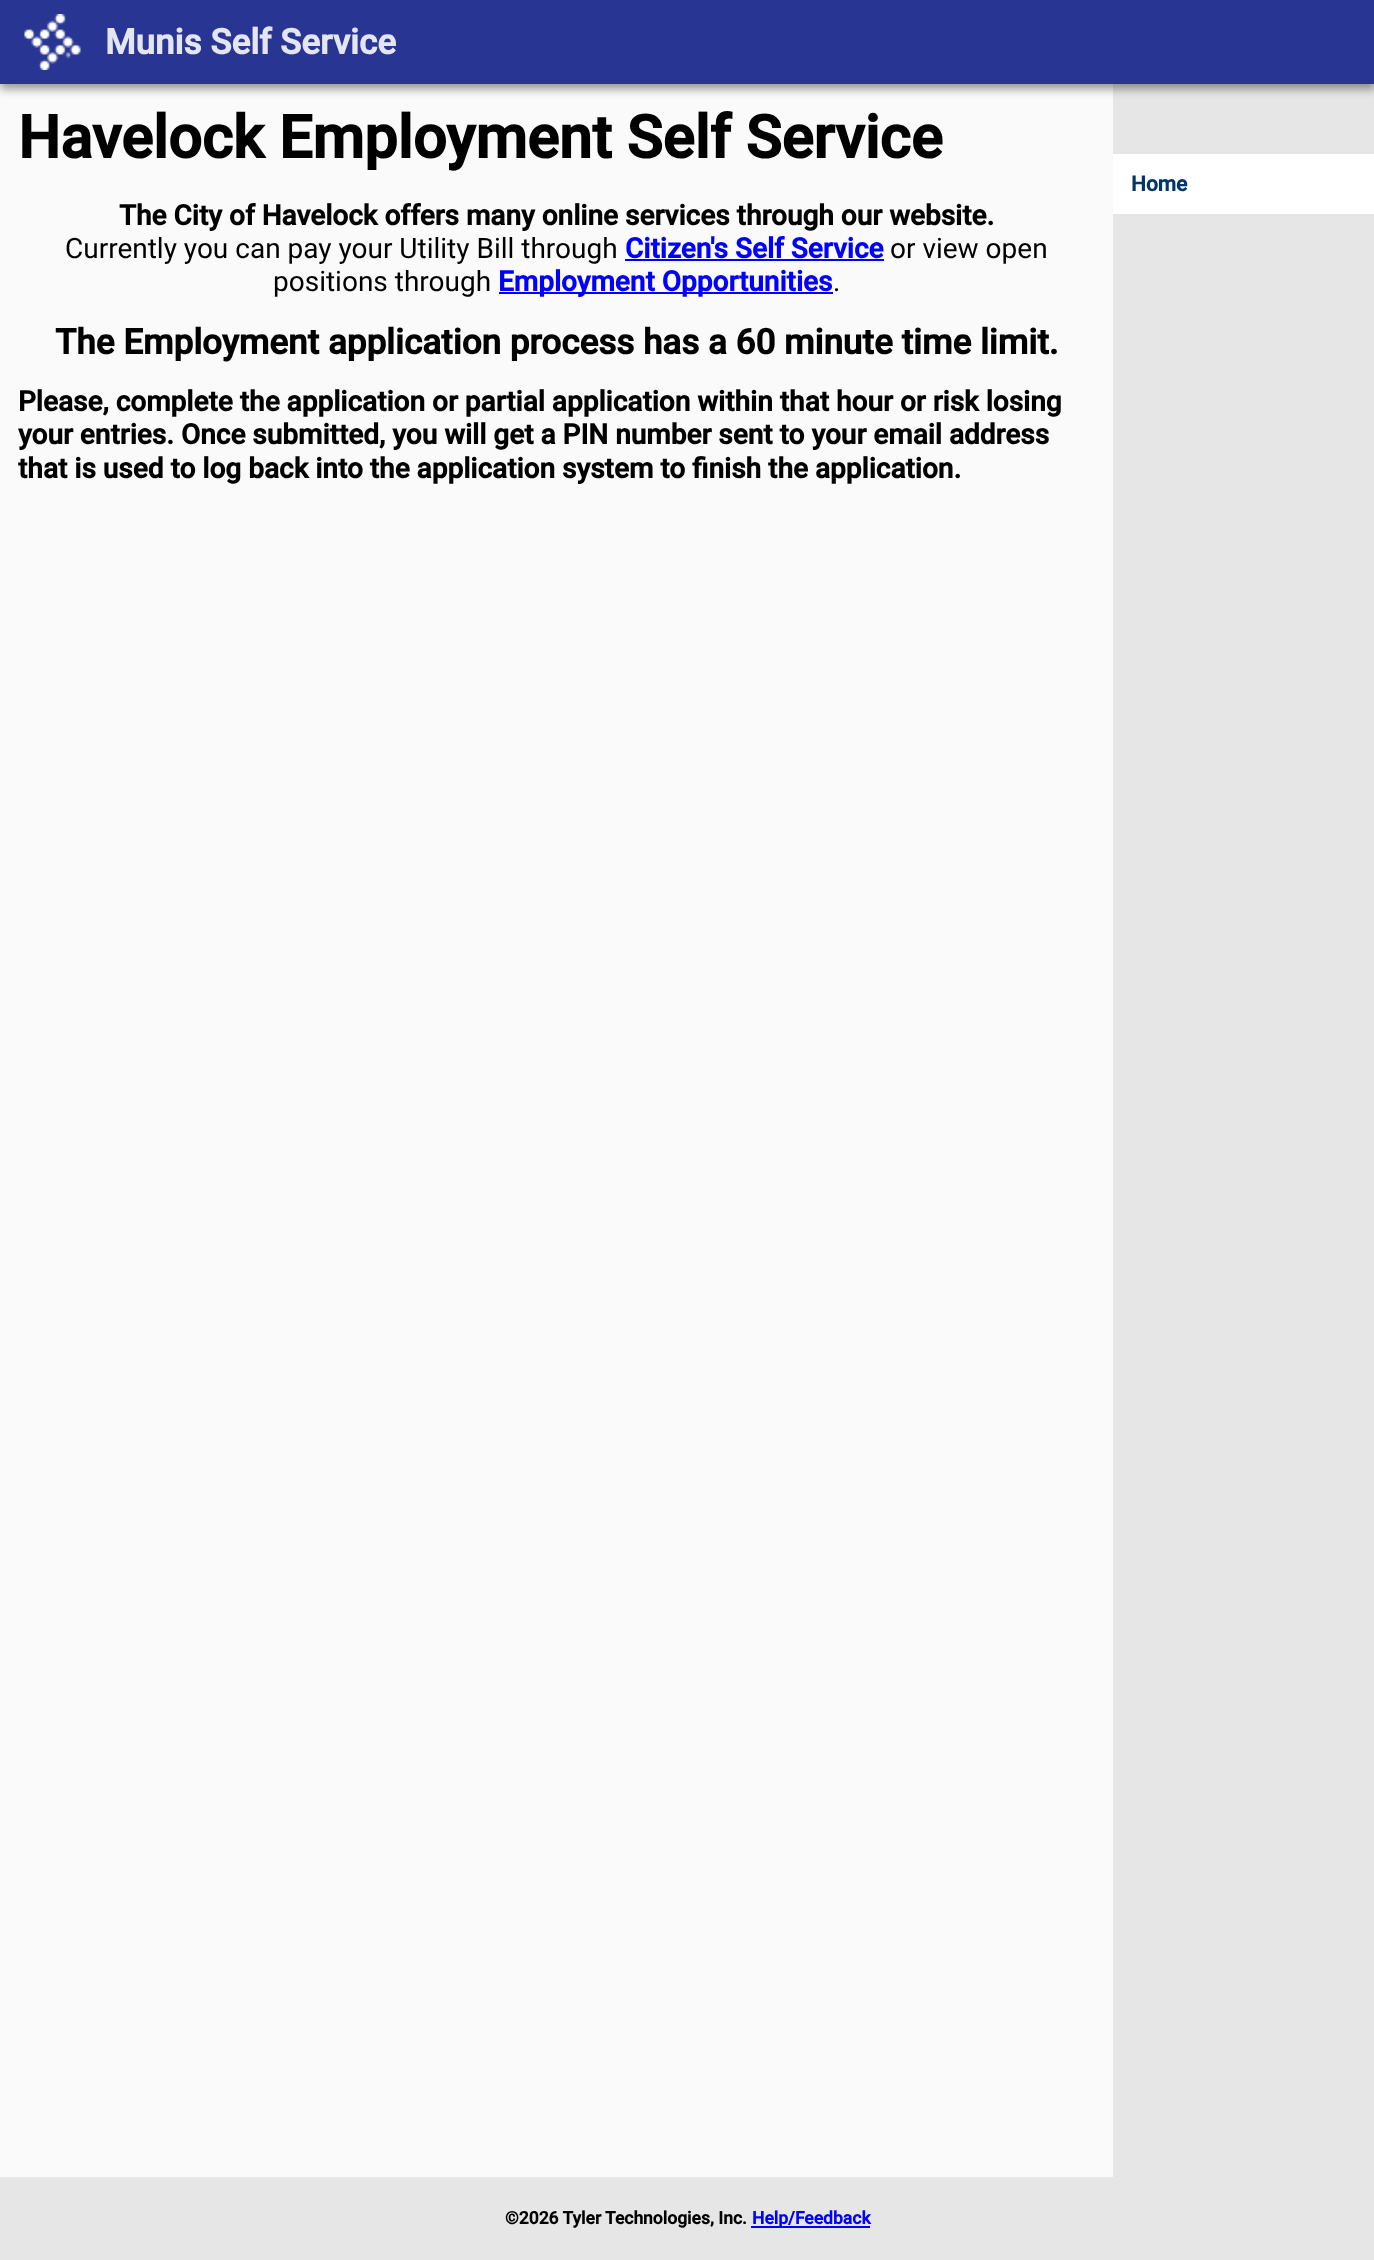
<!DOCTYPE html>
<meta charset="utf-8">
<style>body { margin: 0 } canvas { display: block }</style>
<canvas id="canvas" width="1374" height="2260"></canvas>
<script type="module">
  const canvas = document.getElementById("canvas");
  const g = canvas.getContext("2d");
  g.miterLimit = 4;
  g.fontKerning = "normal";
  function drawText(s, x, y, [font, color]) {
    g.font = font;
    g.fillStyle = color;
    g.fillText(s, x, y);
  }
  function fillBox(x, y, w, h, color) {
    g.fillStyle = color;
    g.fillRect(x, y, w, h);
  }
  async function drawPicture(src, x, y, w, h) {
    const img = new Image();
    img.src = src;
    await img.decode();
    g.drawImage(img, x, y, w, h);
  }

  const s1 = ["bold 35px Roboto", "#E3E5F1"];
  const s2 = ["bold 59.5px Roboto", "#000000"];
  const s3 = ["bold 28px Roboto", "#000000"];
  const s4 = ["28px Roboto", "#000000"];
  const s5 = ["bold 28px Roboto", "#0000FF"];
  const s6 = ["bold 35px Roboto", "#000000"];
  const s7 = ["bold 21px Roboto", "#00366B"];
  const s8 = ["bold 17.5px Roboto", "#000000"];
  const s9 = ["bold 17.5px Roboto", "#0000FF"];

  fillBox(0, 0, 1374, 2260, "#E6E6E6");
  fillBox(0, 84, 1113, 2093, "#FAFAFA");
  g.fillStyle = "rgba(0, 0, 0, 0.4)";
  g.filter = "blur(5px)";
  g.beginPath();
  g.rect(0, 5, 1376, 84);
  g.fill();
  g.filter = "none";
  fillBox(0, 0, 1374, 84, "#283593");
  await drawPicture("pic1.png", 24, 14, 57, 56);
  drawText("Munis Self Service", 105, 54, s1);
  drawText("Havelock Employment Self Service", 18, 158, s2);
  drawText("The City of Havelock offers many online services through our website.", 119, 225, s3);
  drawText("Currently you can pay your Utility Bill through", 65, 258, s4);
  drawText("Citizen's Self Service", 625, 258, s5);
  fillBox(625, 259, 259, 2, "#0000FF");
  drawText("or view open", 890, 258, s4);
  drawText("positions through", 273, 291, s4);
  fillBox(499, 292, 334, 2, "#0000FF");
  drawText("Employment Opportunities", 498, 291, s5);
  drawText(".", 833, 291, s4);
  drawText("The Employment application process has a 60 minute time limit.", 55, 354, s6);
  drawText("Please, complete the application or partial application within that hour or risk losing", 18, 411, s3);
  drawText("your entries. Once submitted, you will get a PIN number sent to your email address", 18, 444, s3);
  drawText("that is used to log back into the application system to finish the application.", 18, 478, s3);
  fillBox(1113, 154, 261, 60, "#FFFFFF");
  drawText("Home", 1131, 191, s7);
  drawText("©2026 Tyler Technologies, Inc.", 505, 2224, s8);
  fillBox(751, 2226, 119, 2, "#0000FF");
  drawText("Help/Feedback", 752, 2224, s9);
</script>
